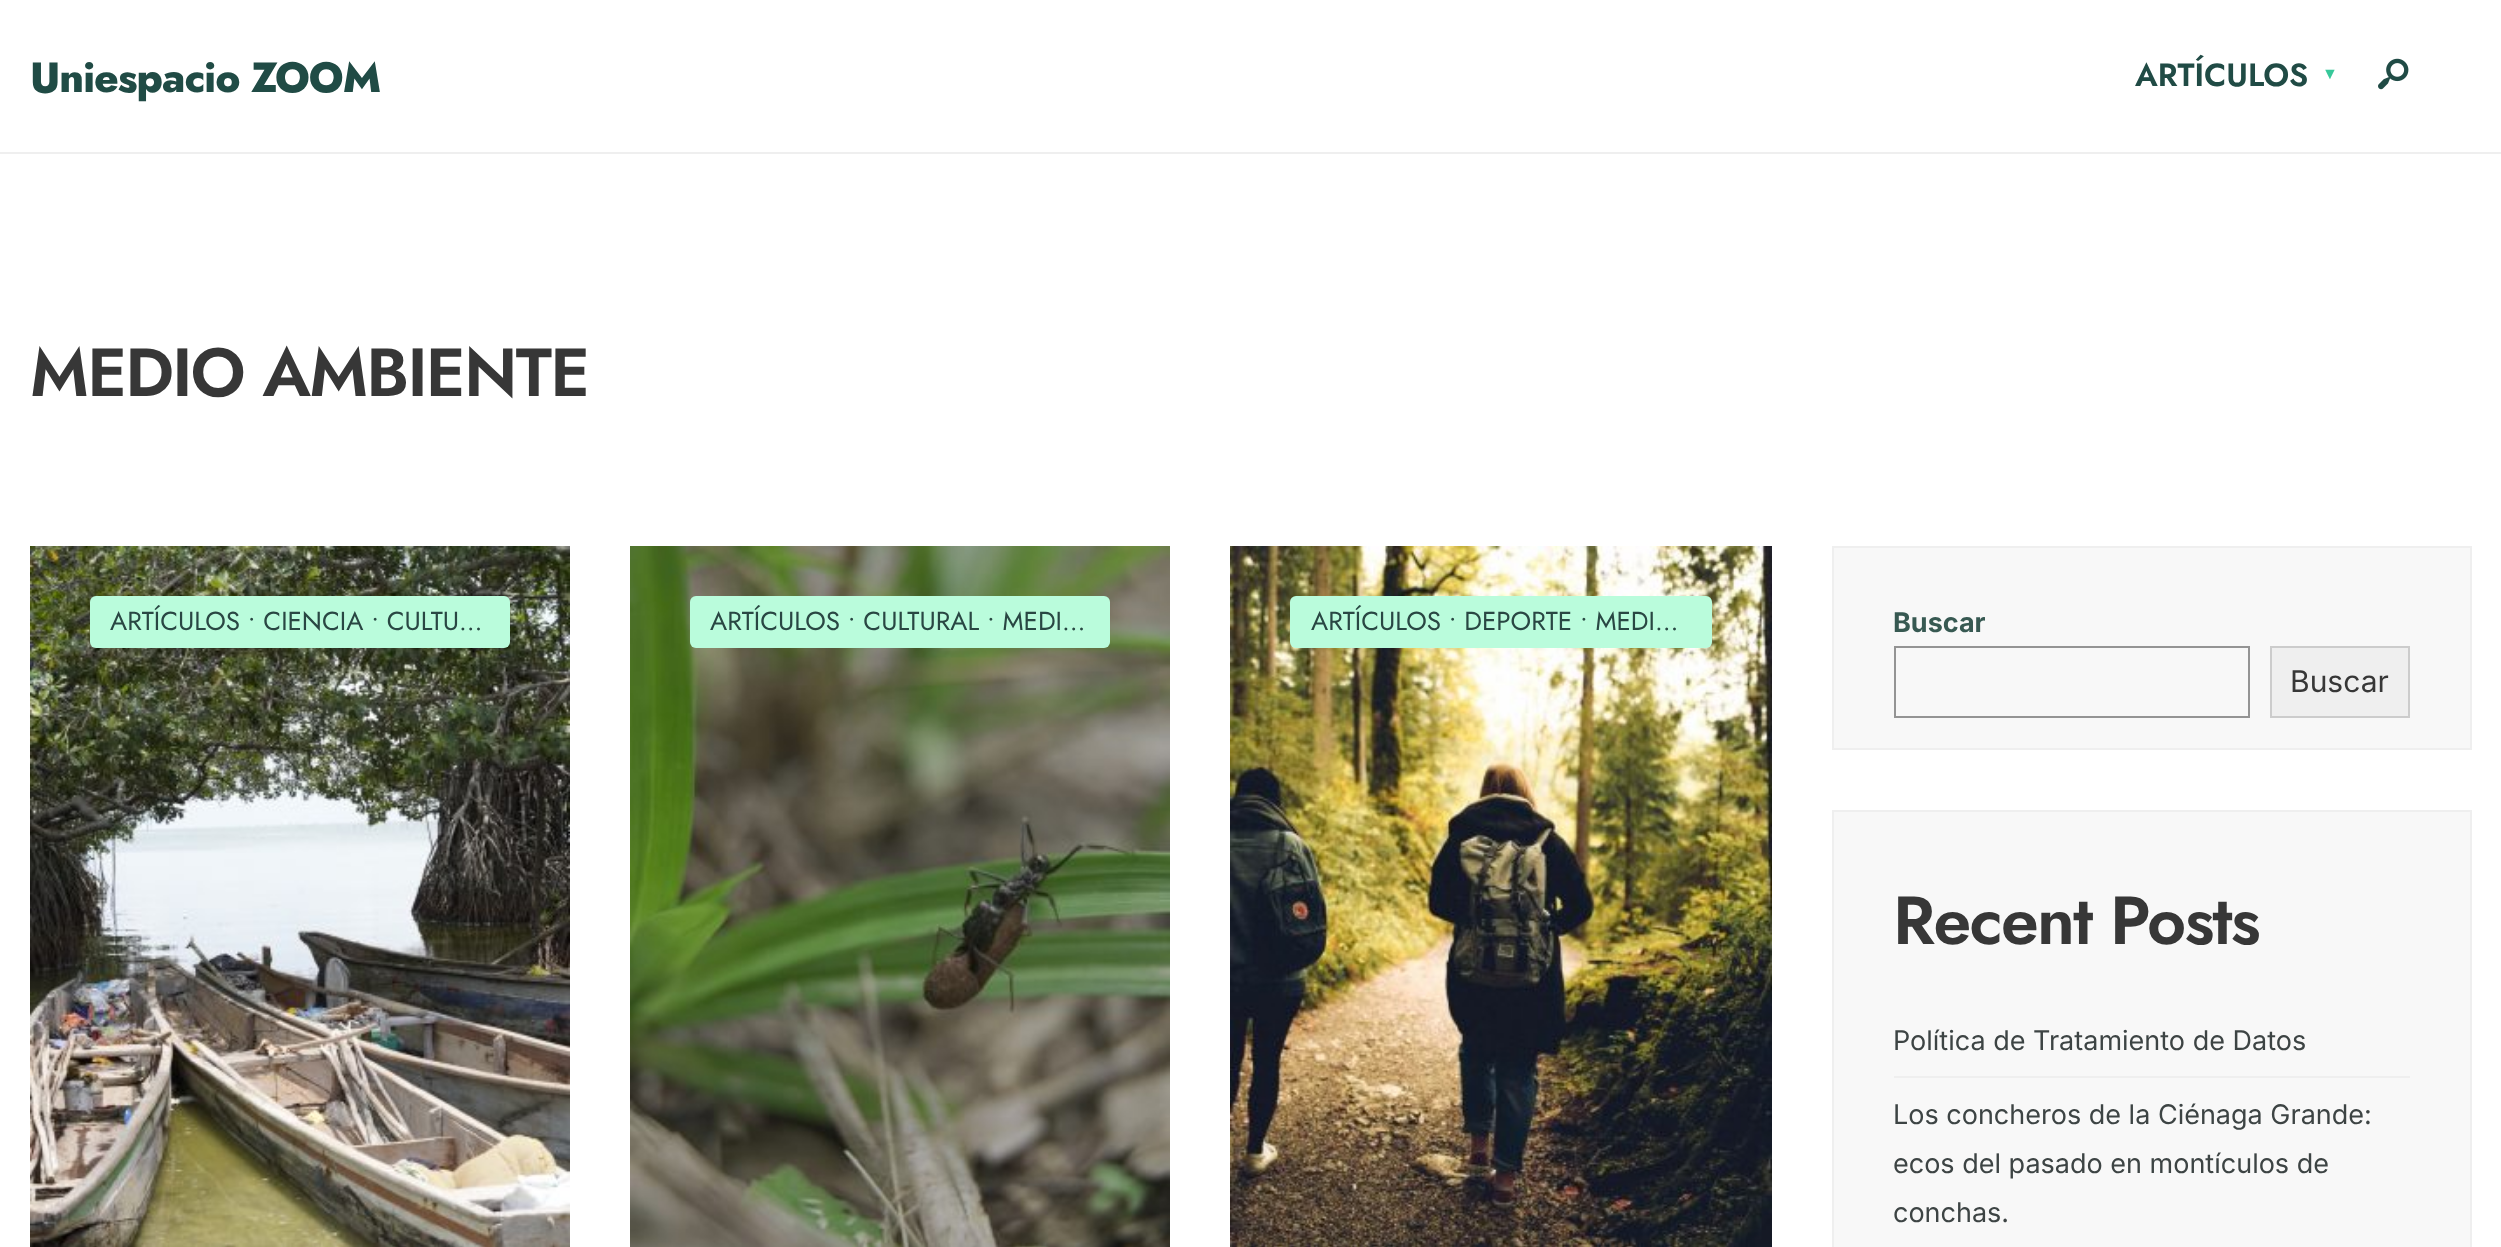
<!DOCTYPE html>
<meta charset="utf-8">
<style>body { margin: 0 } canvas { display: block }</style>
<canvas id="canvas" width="2501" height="1247"></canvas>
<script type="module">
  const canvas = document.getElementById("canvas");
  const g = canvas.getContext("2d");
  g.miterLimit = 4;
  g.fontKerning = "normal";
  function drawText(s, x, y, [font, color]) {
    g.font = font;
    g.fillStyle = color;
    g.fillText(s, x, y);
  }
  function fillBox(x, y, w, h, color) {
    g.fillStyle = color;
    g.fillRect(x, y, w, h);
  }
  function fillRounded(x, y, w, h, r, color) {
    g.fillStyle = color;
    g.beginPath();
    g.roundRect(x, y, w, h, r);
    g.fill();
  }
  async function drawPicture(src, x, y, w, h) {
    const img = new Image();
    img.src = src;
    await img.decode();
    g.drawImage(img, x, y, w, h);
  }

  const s1 = ["800 42px Jost", "#204B45"];
  const s2 = ["600 32px Jost", "#204B45"];
  const s3 = ["16px Liberation Sans", "#37C89A"];
  const s4 = ["600 68px Jost", "#373737"];
  const s5 = ["26px Jost", "#294743"];
  const s6 = ["bold 27px Inter", "#375952"];
  const s7 = ["30px Inter", "#373737"];
  const s8 = ["27px Inter", "#3D4444"];

  fillBox(0, 0, 2501, 1247, "#FFFFFF");
  fillBox(0, 152, 2501, 2, "#EFEFEF");
  g.letterSpacing = "-1px";
  drawText("Uniespacio ZOOM", 30, 92, s1);
  g.letterSpacing = "0px";
  drawText("ARTÍCULOS", 2135, 86, s2);
  drawText("▼", 2322, 79, s3);
  await drawPicture("pic1.png", 2378, 58, 31, 32);
  g.letterSpacing = "-1.75px";
  drawText("MEDIO AMBIENTE", 30, 396, s4);
  await drawPicture("pic2.png", 30, 546, 540, 701);
  fillRounded(90, 596, 420, 52, 6, "#BAFCDC");
  g.letterSpacing = "0px";
  drawText("ARTÍCULOS • CIENCIA • CULTU…", 110, 630, s5);
  await drawPicture("pic3.png", 630, 546, 540, 701);
  fillRounded(690, 596, 420, 52, 6, "#BAFCDC");
  drawText("ARTÍCULOS • CULTURAL • MEDI…", 710, 630, s5);
  await drawPicture("pic4.png", 1230, 546, 542, 701);
  fillRounded(1290, 596, 422, 52, 6, "#BAFCDC");
  drawText("ARTÍCULOS • DEPORTE • MEDI…", 1311, 630, s5);
  g.fillStyle = "#F8F8F8";
  g.beginPath();
  g.rect(1833, 547, 638, 202);
  g.fill();
  g.strokeStyle = "#EFEFEF";
  g.lineWidth = 2;
  g.stroke();
  drawText("Buscar", 1893, 632, s6);
  g.strokeStyle = "#949494";
  g.strokeRect(1895, 647, 354, 70);
  g.fillStyle = "#EFEFEF";
  g.beginPath();
  g.rect(2271, 647, 138, 70);
  g.fill();
  g.strokeStyle = "#CCCCCC";
  g.stroke();
  drawText("Buscar", 2290, 692, s7);
  g.fillStyle = "#F8F8F8";
  g.beginPath();
  g.rect(1833, 811, 638, 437);
  g.fill();
  g.strokeStyle = "#EFEFEF";
  g.stroke();
  g.letterSpacing = "-1.75px";
  drawText("Recent Posts", 1893, 944, s4);
  g.letterSpacing = "0px";
  drawText("Política de Tratamiento de Datos", 1893, 1050, s8);
  fillBox(1894, 1076, 516, 2, "#EFEFEF");
  drawText("Los concheros de la Ciénaga Grande:", 1893, 1124, s8);
  drawText("ecos del pasado en montículos de", 1893, 1173, s8);
  drawText("conchas.", 1893, 1222, s8);
</script>
